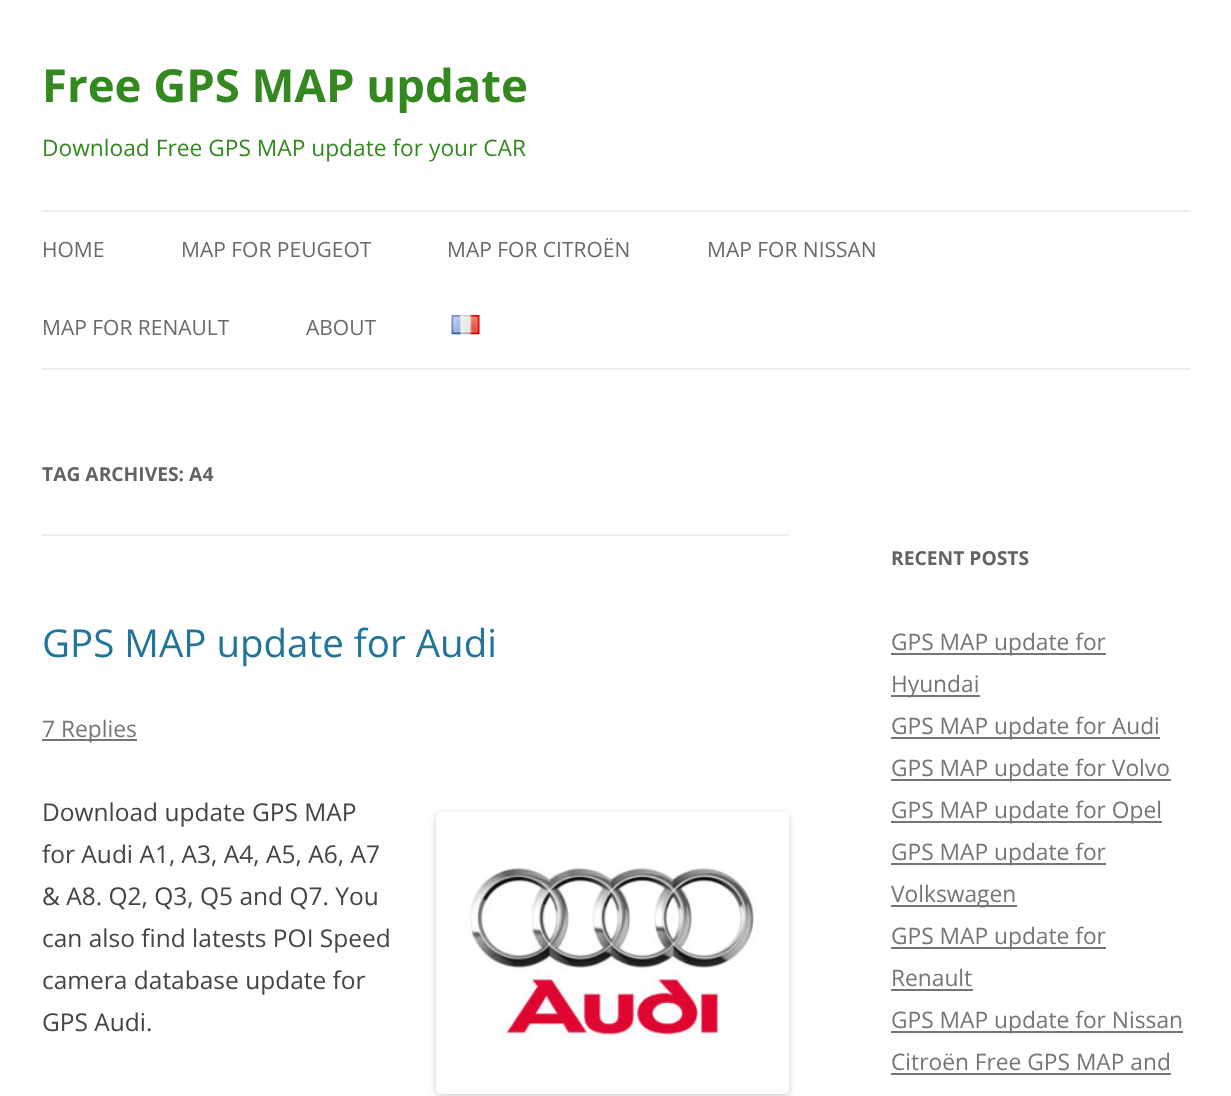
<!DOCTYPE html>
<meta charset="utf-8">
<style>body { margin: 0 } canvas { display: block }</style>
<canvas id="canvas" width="1231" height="1096"></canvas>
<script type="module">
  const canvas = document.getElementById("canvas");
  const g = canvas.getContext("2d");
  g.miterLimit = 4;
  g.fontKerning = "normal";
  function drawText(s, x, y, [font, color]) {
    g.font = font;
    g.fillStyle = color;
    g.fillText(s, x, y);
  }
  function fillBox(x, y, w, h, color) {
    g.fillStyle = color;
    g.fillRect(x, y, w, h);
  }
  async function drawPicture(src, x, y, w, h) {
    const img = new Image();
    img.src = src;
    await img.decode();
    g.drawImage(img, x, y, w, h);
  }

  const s1 = ["bold 45.5px Open Sans", "#33891F"];
  const s2 = ["22.75px Open Sans", "#33891F"];
  const s3 = ["21px Open Sans", "#6A6A6A"];
  const s4 = ["bold 19.25px Open Sans", "#636363"];
  const s5 = ["38.5px Open Sans", "#21759B"];
  const s6 = ["22.75px Open Sans", "#757575"];
  const s7 = ["24.5px Open Sans", "#444444"];

  fillBox(0, 0, 1231, 1096, "#FFFFFF");
  drawText("Free GPS MAP update", 42, 102, s1);
  drawText("Download Free GPS MAP update for your CAR", 42, 156, s2);
  fillBox(42, 210, 1148, 2, "#EDEDED");
  fillBox(42, 368, 1148, 2, "#EDEDED");
  drawText("HOME", 42, 257, s3);
  drawText("MAP FOR PEUGEOT", 181, 257, s3);
  drawText("MAP FOR CITROËN", 447, 257, s3);
  drawText("MAP FOR NISSAN", 707, 257, s3);
  drawText("MAP FOR RENAULT", 42, 335, s3);
  drawText("ABOUT", 306, 335, s3);
  await drawPicture("pic1.png", 451, 315, 29, 20);
  fillBox(42, 534, 747, 2, "#EDEDED");
  drawText("TAG ARCHIVES: A4", 42, 481, s4);
  drawText("GPS MAP update for Audi", 42, 657, s5);
  fillBox(42, 739, 95, 2, "#757575");
  drawText("7 Replies", 42, 737, s6);
  drawText("Download update GPS MAP", 42, 821, s7);
  g.save();
  g.beginPath();
  g.moveTo(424, 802);
  g.lineTo(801, 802);
  g.lineTo(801, 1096);
  g.lineTo(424, 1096);
  g.closePath();
  g.moveTo(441, 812);
  g.lineTo(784, 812);
  g.bezierCurveTo(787, 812, 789, 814, 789, 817);
  g.lineTo(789, 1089);
  g.bezierCurveTo(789, 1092, 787, 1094, 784, 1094);
  g.lineTo(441, 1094);
  g.bezierCurveTo(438, 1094, 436, 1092, 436, 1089);
  g.lineTo(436, 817);
  g.bezierCurveTo(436, 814, 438, 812, 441, 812);
  g.closePath();
  g.clip("evenodd");
  g.fillStyle = "rgba(0, 0, 0, 0.2)";
  g.filter = "blur(3.5px)";
  g.beginPath();
  g.roundRect(436, 814, 353, 282, 5);
  g.fill();
  g.filter = "none";
  g.restore();
  await drawPicture("pic2.png", 436, 867, 353, 227);
  drawText("for Audi A1, A3, A4, A5, A6, A7", 42, 863, s7);
  drawText("& A8. Q2, Q3, Q5 and Q7. You", 42, 905, s7);
  drawText("can also find latests POI Speed", 42, 947, s7);
  drawText("camera database update for", 42, 989, s7);
  drawText("GPS Audi.", 42, 1031, s7);
  drawText("RECENT POSTS", 891, 565, s4);
  fillBox(891, 653, 215, 2, "#757575");
  drawText("GPS MAP update for", 891, 650, s6);
  fillBox(891, 695, 89, 2, "#757575");
  drawText("Hyundai", 891, 692, s6);
  fillBox(891, 737, 269, 2, "#757575");
  drawText("GPS MAP update for Audi", 891, 734, s6);
  fillBox(891, 779, 280, 2, "#757575");
  drawText("GPS MAP update for Volvo", 891, 776, s6);
  fillBox(891, 821, 271, 2, "#757575");
  drawText("GPS MAP update for Opel", 891, 818, s6);
  fillBox(891, 863, 215, 2, "#757575");
  drawText("GPS MAP update for", 891, 860, s6);
  fillBox(891, 905, 126, 2, "#757575");
  drawText("Volkswagen", 891, 902, s6);
  fillBox(891, 947, 215, 2, "#757575");
  drawText("GPS MAP update for", 891, 944, s6);
  drawText("Renault", 891, 986, s6);
  fillBox(891, 989, 82, 2, "#757575");
  fillBox(891, 1031, 292, 2, "#757575");
  drawText("GPS MAP update for Nissan", 891, 1028, s6);
  drawText("Citroën Free GPS MAP and", 891, 1070, s6);
  fillBox(891, 1073, 280, 2, "#757575");
</script>
